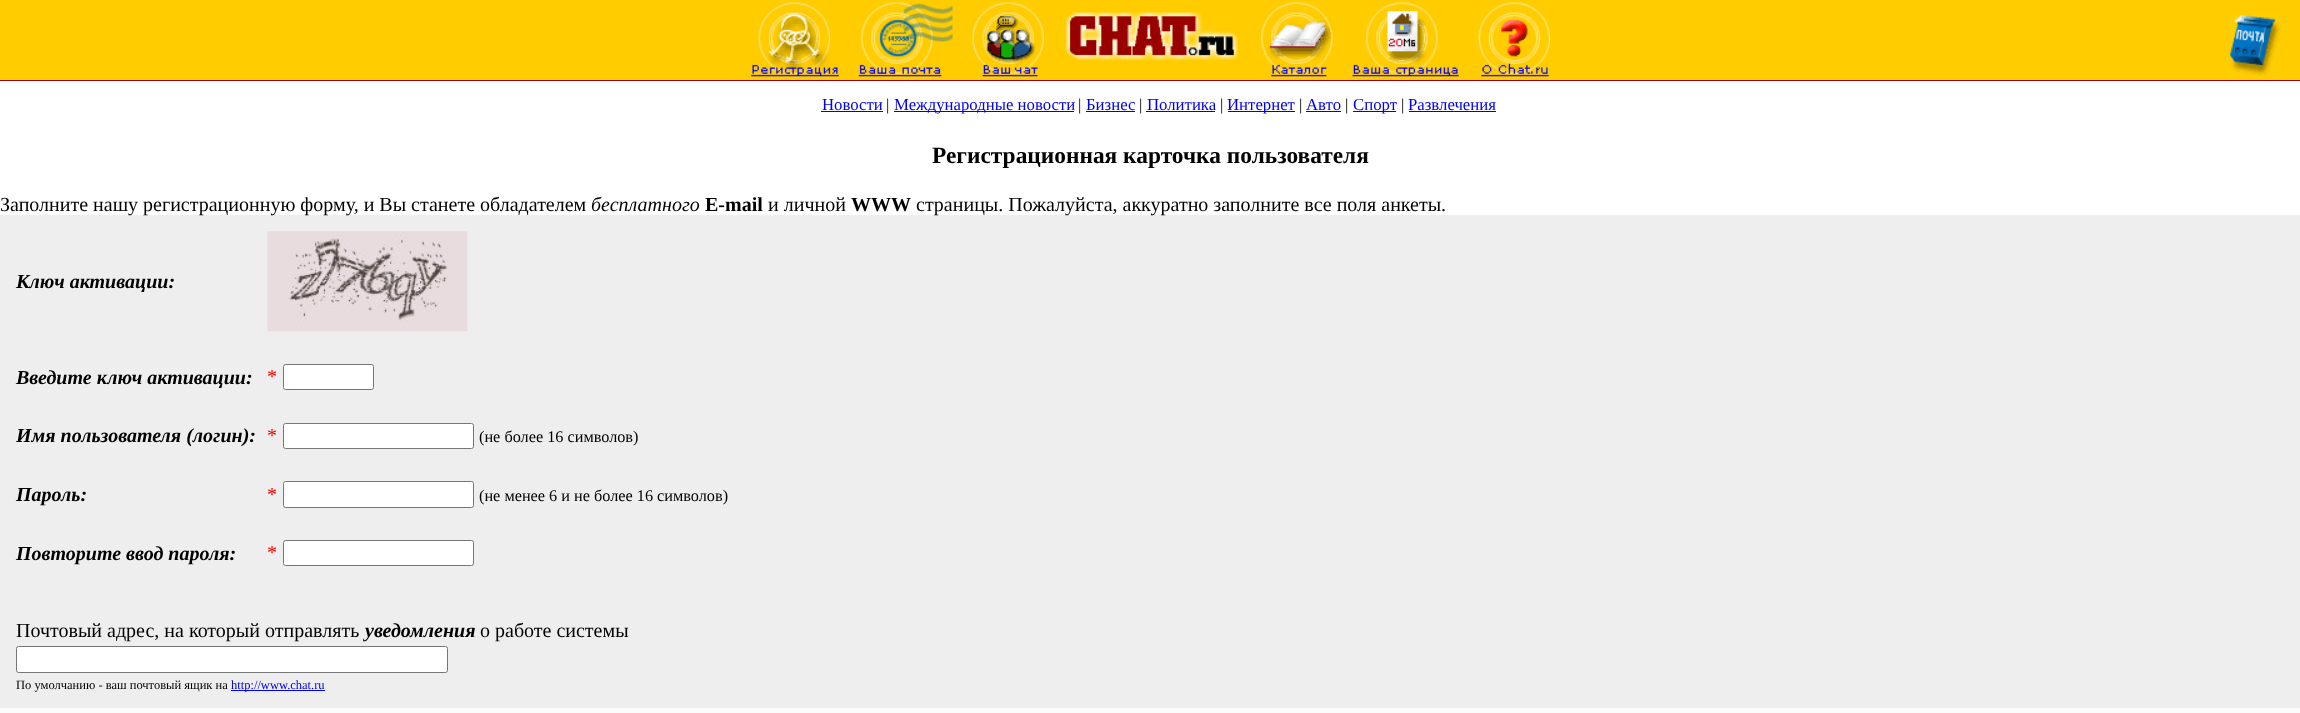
<!DOCTYPE html>
<meta charset="utf-8">
<style>body { margin: 0 } canvas { display: block }</style>
<canvas id="canvas" width="2300" height="713"></canvas>
<script type="module">
  const canvas = document.getElementById("canvas");
  const g = canvas.getContext("2d");
  g.miterLimit = 4;
  g.fontKerning = "normal";
  function drawText(s, x, y, [font, color]) {
    g.font = font;
    g.fillStyle = color;
    g.fillText(s, x, y);
  }
  function fillBox(x, y, w, h, color) {
    g.fillStyle = color;
    g.fillRect(x, y, w, h);
  }
  async function drawPicture(src, x, y, w, h) {
    const img = new Image();
    img.src = src;
    await img.decode();
    g.drawImage(img, x, y, w, h);
  }

  const s1 = ["16.75px Liberation Serif", "#0000EE"];
  const s2 = ["16.75px Liberation Serif", "#000000"];
  const s3 = ["bold 23.4px Liberation Serif", "#000000"];
  const s4 = ["20px Liberation Serif", "#000000"];
  const s5 = ["italic 20px Liberation Serif", "#000000"];
  const s6 = ["bold 20px Liberation Serif", "#000000"];
  const s7 = ["italic bold 20px Liberation Serif", "#000000"];
  const s8 = ["20px Liberation Serif", "#FF0000"];
  const s9 = ["16.25px Liberation Serif", "#000000"];
  const s10 = ["12.5px Liberation Serif", "#000000"];
  const s11 = ["12.5px Liberation Serif", "#0000EE"];

  fillBox(0, 0, 2300, 713, "#FFFFFF");
  fillBox(0, 0, 2300, 80, "#FFCC00");
  await drawPicture("pic1.png", 751, 2, 88, 75);
  await drawPicture("pic2.png", 858, 2, 95, 75);
  await drawPicture("pic3.png", 972, 2, 72, 75);
  await drawPicture("pic4.png", 1066, 12, 172, 49);
  await drawPicture("pic5.png", 1261, 2, 72, 75);
  await drawPicture("pic6.png", 1352, 2, 107, 75);
  await drawPicture("pic7.png", 1478, 2, 72, 75);
  await drawPicture("pic8.png", 2229, 14, 52, 62);
  fillBox(0, 80, 2300, 1, "#990000");
  drawText("Новости", 822, 110, s1);
  fillBox(821, 111, 62, 1, "#0000EE");
  drawText("|", 886, 110, s2);
  fillBox(894, 111, 180, 1, "#0000EE");
  drawText("Международные новости", 894, 110, s1);
  drawText("|", 1078, 110, s2);
  drawText("Бизнес", 1086, 110, s1);
  fillBox(1086, 111, 49, 1, "#0000EE");
  drawText("|", 1139, 110, s2);
  drawText("Политика", 1147, 110, s1);
  fillBox(1146, 111, 69, 1, "#0000EE");
  drawText("|", 1220, 110, s2);
  fillBox(1228, 111, 67, 1, "#0000EE");
  drawText("Интернет", 1227, 110, s1);
  drawText("|", 1299, 110, s2);
  drawText("Авто", 1306, 110, s1);
  fillBox(1306, 111, 35, 1, "#0000EE");
  drawText("|", 1345, 110, s2);
  fillBox(1353, 111, 43, 1, "#0000EE");
  drawText("Спорт", 1353, 110, s1);
  drawText("|", 1401, 110, s2);
  drawText("Развлечения", 1408, 110, s1);
  fillBox(1409, 111, 87, 1, "#0000EE");
  drawText("Регистрационная карточка пользователя", 932, 163, s3);
  fillBox(0, 215, 2300, 493, "#EEEEEE");
  drawText("Заполните нашу регистрационную форму, и Вы станете обладателем", 0, 211, s4);
  drawText("бесплатного", 591, 211, s5);
  drawText("E-mail", 705, 211, s6);
  drawText("и личной", 768, 211, s4);
  drawText("WWW", 851, 211, s6);
  drawText("страницы. Пожалуйста, аккуратно заполните все поля анкеты.", 916, 211, s4);
  drawText("Ключ активации:", 16, 288, s7);
  await drawPicture("pic9.png", 267, 231, 201, 101);
  drawText("Введите ключ активации:", 16, 384, s7);
  drawText("*", 267, 383, s8);
  g.fillStyle = "#FFFFFF";
  g.beginPath();
  g.roundRect(283.5, 364.5, 90, 25, 2);
  g.fill();
  g.strokeStyle = "#767676";
  g.stroke();
  drawText("Имя пользователя (логин):", 16, 442, s7);
  drawText("*", 267, 442, s8);
  g.fillStyle = "#FFFFFF";
  g.beginPath();
  g.roundRect(283.5, 423.5, 190, 25, 2);
  g.fill();
  g.stroke();
  drawText("(не более 16 символов)", 479, 442, s9);
  drawText("Пароль:", 16, 501, s7);
  drawText("*", 267, 501, s8);
  g.fillStyle = "#FFFFFF";
  g.beginPath();
  g.roundRect(283.5, 481.5, 190, 26, 2);
  g.fill();
  g.stroke();
  drawText("(не менее 6 и не более 16 символов)", 479, 501, s9);
  drawText("Повторите ввод пароля:", 16, 560, s7);
  drawText("*", 267, 559, s8);
  g.fillStyle = "#FFFFFF";
  g.beginPath();
  g.roundRect(283.5, 540.5, 190, 25, 2);
  g.fill();
  g.stroke();
  drawText("Почтовый адрес, на который отправлять", 16, 637, s4);
  drawText("уведомления", 365, 637, s7);
  drawText("о работе системы", 480, 637, s4);
  g.fillStyle = "#FFFFFF";
  g.beginPath();
  g.roundRect(16.5, 646.5, 431, 26, 2);
  g.fill();
  g.stroke();
  drawText("По умолчанию - ваш почтовый ящик на", 16, 689, s10);
  fillBox(231, 690, 94, 1, "#0000EE");
  drawText("http://www.chat.ru", 231, 689, s11);
  fillBox(0, 708, 2300, 5, "#FBFBFB");
</script>
